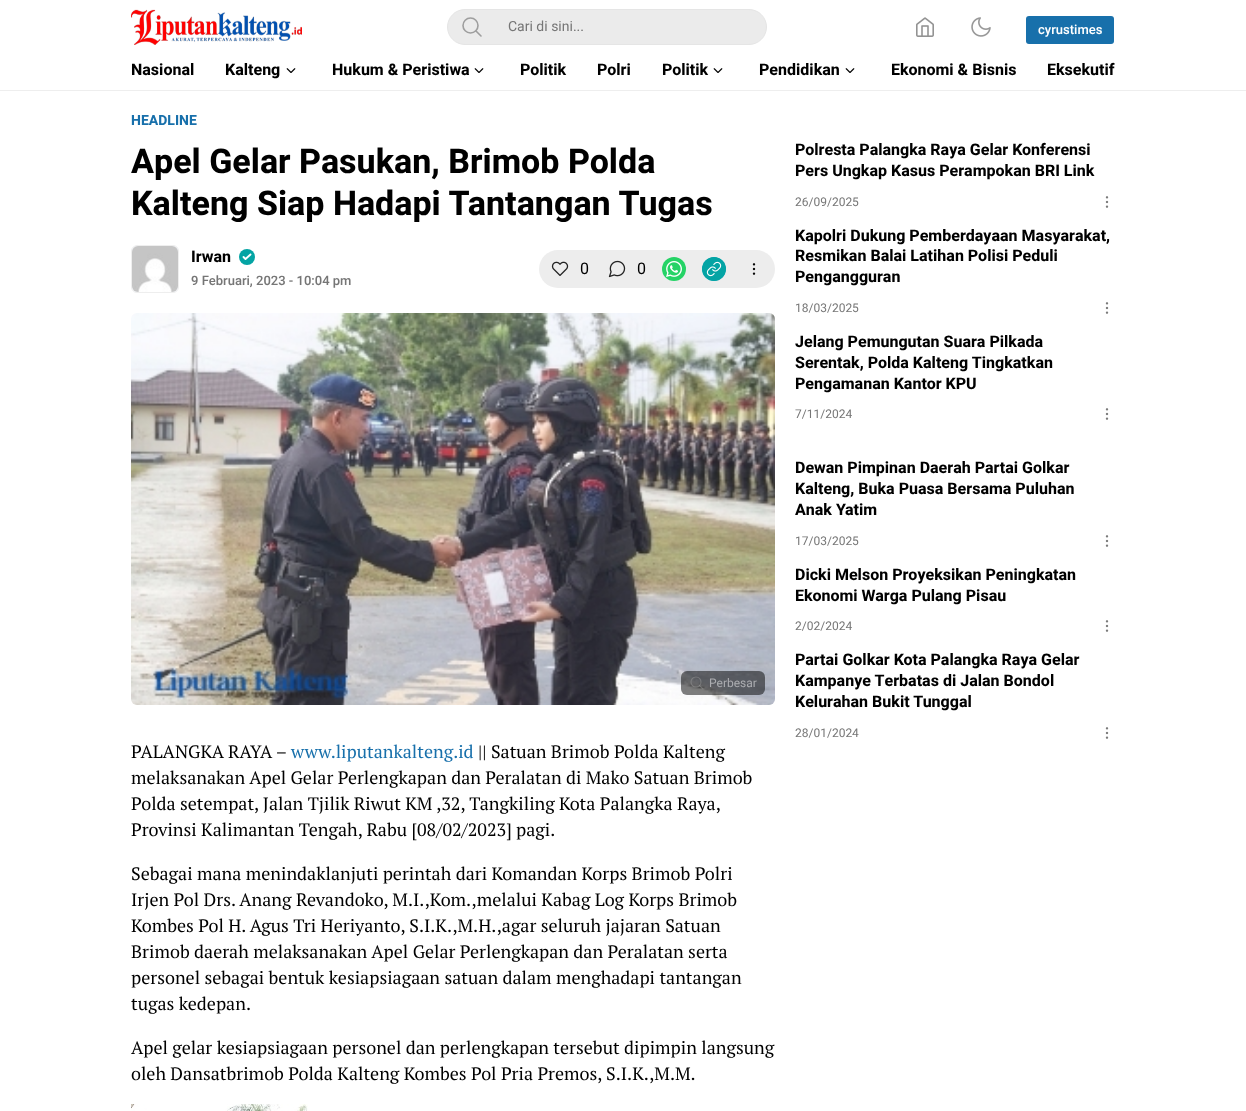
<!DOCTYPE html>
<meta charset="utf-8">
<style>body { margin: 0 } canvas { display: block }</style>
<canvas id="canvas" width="1246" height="1111"></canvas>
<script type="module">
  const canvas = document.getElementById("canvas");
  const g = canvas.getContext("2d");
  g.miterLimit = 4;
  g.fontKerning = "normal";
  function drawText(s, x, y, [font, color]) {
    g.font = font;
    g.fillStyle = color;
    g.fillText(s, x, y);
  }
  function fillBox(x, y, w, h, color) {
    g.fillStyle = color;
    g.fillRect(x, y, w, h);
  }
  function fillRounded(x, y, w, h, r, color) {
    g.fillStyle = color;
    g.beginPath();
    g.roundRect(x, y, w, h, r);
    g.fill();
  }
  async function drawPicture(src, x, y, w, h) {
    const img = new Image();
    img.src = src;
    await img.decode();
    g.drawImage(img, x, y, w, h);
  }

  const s1 = ["14px Heebo", "#767676"];
  const s2 = ["500 13px Heebo", "#FFFFFF"];
  const s3 = ["bold 16px Heebo", "#000000"];
  const s4 = ["bold 14px Heebo", "#1870AB"];
  const s5 = ["bold 34px Heebo", "#000000"];
  const s6 = ["500 13px Heebo", "#767676"];
  const s7 = ["16px Heebo", "#000000"];
  const s8 = ["12px Heebo", "#ACADB1"];
  const s9 = ["18px PT Serif", "#000000"];
  const s10 = ["18px PT Serif", "#1870AB"];
  const s11 = ["12px Heebo", "#767676"];

  fillBox(0, 0, 1246, 1111, "#FFFFFF");
  fillBox(0, 90, 1246, 1, "#EEEEEE");
  await drawPicture("pic1.png", 131, 9, 171, 36);
  g.fillStyle = "#EBEBEB";
  g.beginPath();
  g.roundRect(447.5, 9.5, 319, 35, 17.5);
  g.fill();
  g.strokeStyle = "#E5E5E5";
  g.stroke();
  g.beginPath();
  g.arc(470.5, 25.5, 7.5, 0, Math.PI * 2);
  g.strokeStyle = "#9E9E9E";
  g.lineWidth = 1.6;
  g.stroke();
  g.beginPath();
  g.moveTo(481, 36);
  g.lineTo(476, 31);
  g.lineCap = "round";
  g.lineJoin = "round";
  g.stroke();
  drawText("Cari di sini...", 508, 31, s1);
  await drawPicture("pic2.png", 916, 17, 18, 20);
  await drawPicture("pic3.png", 971, 17, 20, 20);
  fillRounded(1026, 16, 88, 28, 3, "#1870AB");
  drawText("cyrustimes", 1038, 34, s2);
  drawText("Nasional", 131, 75, s3);
  drawText("Kalteng", 225, 75, s3);
  await drawPicture("pic4.png", 286, 68, 10, 5);
  drawText("Hukum & Peristiwa", 332, 75, s3);
  await drawPicture("pic4.png", 474, 68, 10, 5);
  drawText("Politik", 520, 75, s3);
  drawText("Polri", 597, 75, s3);
  drawText("Politik", 662, 75, s3);
  await drawPicture("pic4.png", 713, 68, 10, 5);
  drawText("Pendidikan", 759, 75, s3);
  await drawPicture("pic4.png", 845, 68, 10, 5);
  drawText("Ekonomi & Bisnis", 891, 75, s3);
  drawText("Eksekutif", 1047, 75, s3);
  drawText("HEADLINE", 131, 125, s4);
  drawText("Apel Gelar Pasukan, Brimob Polda", 131, 173, s5);
  drawText("Kalteng Siap Hadapi Tantangan Tugas", 131, 215, s5);
  g.fillStyle = "#F6F8FC";
  g.beginPath();
  g.roundRect(131.5, 245.5, 47, 47, 5.5);
  g.fill();
  g.strokeStyle = "#EEEEEE";
  g.lineWidth = 1;
  g.lineJoin = "miter";
  g.stroke();
  await drawPicture("pic5.png", 132, 246, 46, 46);
  drawText("Irwan", 191, 262, s3);
  g.fillStyle = "#04A4A4";
  g.beginPath();
  g.arc(247, 257, 8, 0, Math.PI * 2);
  g.fill();
  g.beginPath();
  g.moveTo(250.5, 254.5);
  g.lineTo(245.5, 259);
  g.lineTo(243.5, 257);
  g.strokeStyle = "#FFFFFF";
  g.lineWidth = 1.9;
  g.lineJoin = "round";
  g.stroke();
  drawText("9 Februari, 2023 - 10:04 pm", 191, 285, s6);
  fillRounded(539, 250, 236, 38, 19, "#EDEDED");
  await drawPicture("pic6.png", 551, 261, 18, 15);
  drawText("0", 580, 274, s7);
  await drawPicture("pic7.png", 608, 260, 18, 18);
  drawText("0", 637, 274, s7);
  g.fillStyle = "#25D366";
  g.beginPath();
  g.arc(674, 269, 12, 0, Math.PI * 2);
  g.fill();
  await drawPicture("pic8.png", 666, 261, 16, 16);
  g.fillStyle = "#00A1B0";
  g.beginPath();
  g.arc(714, 269, 12, 0, Math.PI * 2);
  g.fill();
  await drawPicture("pic9.png", 702, 257, 24, 24);
  await drawPicture("pic10.png", 752, 263, 4, 12);
  await drawPicture("pic11.png", 131, 313, 644, 392);
  fillRounded(681, 671, 84, 24, 6, "rgba(0, 0, 0, 0.5)");
  g.beginPath();
  g.arc(696, 682, 5, 0, Math.PI * 2);
  g.strokeStyle = "rgba(153, 153, 153, 0.5)";
  g.lineWidth = 1.1;
  g.stroke();
  g.beginPath();
  g.moveTo(703, 689);
  g.lineTo(699.5, 685.5);
  g.stroke();
  drawText("Perbesar", 709, 687, s8);
  drawText("PALANGKA RAYA –", 131, 758, s9);
  drawText("www.liputankalteng.id", 291, 758, s10);
  drawText("|| Satuan Brimob Polda Kalteng", 478, 758, s9);
  drawText("melaksanakan Apel Gelar Perlengkapan dan Peralatan di Mako Satuan Brimob", 131, 784, s9);
  drawText("Polda setempat, Jalan Tjilik Riwut KM ,32, Tangkiling Kota Palangka Raya,", 131, 810, s9);
  drawText("Provinsi Kalimantan Tengah, Rabu [08/02/2023] pagi.", 131, 836, s9);
  drawText("Sebagai mana menindaklanjuti perintah dari Komandan Korps Brimob Polri", 131, 880, s9);
  drawText("Irjen Pol Drs. Anang Revandoko, M.I.,Kom.,melalui Kabag Log Korps Brimob", 131, 906, s9);
  drawText("Kombes Pol H. Agus Tri Heriyanto, S.I.K.,M.H.,agar seluruh jajaran Satuan", 131, 932, s9);
  drawText("Brimob daerah melaksanakan Apel Gelar Perlengkapan dan Peralatan serta", 131, 958, s9);
  drawText("personel sebagai bentuk kesiapsiagaan satuan dalam menghadapi tantangan", 131, 984, s9);
  drawText("tugas kedepan.", 131, 1010, s9);
  drawText("Apel gelar kesiapsiagaan personel dan perlengkapan tersebut dipimpin langsung", 131, 1054, s9);
  drawText("oleh Dansatbrimob Polda Kalteng Kombes Pol Pria Premos, S.I.K.,M.M.", 131, 1080, s9);
  await drawPicture("pic12.png", 131, 1104, 177, 7);
  drawText("Polresta Palangka Raya Gelar Konferensi", 795, 155, s3);
  drawText("Pers Ungkap Kasus Perampokan BRI Link", 795, 176, s3);
  drawText("26/09/2025", 795, 206, s11);
  await drawPicture("pic13.png", 1105, 196, 4, 12);
  drawText("Kapolri Dukung Pemberdayaan Masyarakat,", 795, 241, s3);
  drawText("Resmikan Balai Latihan Polisi Peduli", 795, 261, s3);
  drawText("Pengangguran", 795, 282, s3);
  drawText("18/03/2025", 795, 312, s11);
  await drawPicture("pic13.png", 1105, 302, 4, 12);
  drawText("Jelang Pemungutan Suara Pilkada", 795, 347, s3);
  drawText("Serentak, Polda Kalteng Tingkatkan", 795, 368, s3);
  drawText("Pengamanan Kantor KPU", 795, 389, s3);
  drawText("7/11/2024", 795, 418, s11);
  await drawPicture("pic13.png", 1105, 408, 4, 12);
  drawText("Dewan Pimpinan Daerah Partai Golkar", 795, 473, s3);
  drawText("Kalteng, Buka Puasa Bersama Puluhan", 795, 494, s3);
  drawText("Anak Yatim", 795, 515, s3);
  drawText("17/03/2025", 795, 545, s11);
  await drawPicture("pic13.png", 1105, 535, 4, 12);
  drawText("Dicki Melson Proyeksikan Peningkatan", 795, 580, s3);
  drawText("Ekonomi Warga Pulang Pisau", 795, 601, s3);
  drawText("2/02/2024", 795, 630, s11);
  await drawPicture("pic13.png", 1105, 620, 4, 12);
  drawText("Partai Golkar Kota Palangka Raya Gelar", 795, 665, s3);
  drawText("Kampanye Terbatas di Jalan Bondol", 795, 686, s3);
  drawText("Kelurahan Bukit Tunggal", 795, 707, s3);
  drawText("28/01/2024", 795, 737, s11);
  await drawPicture("pic13.png", 1105, 727, 4, 12);
</script>
